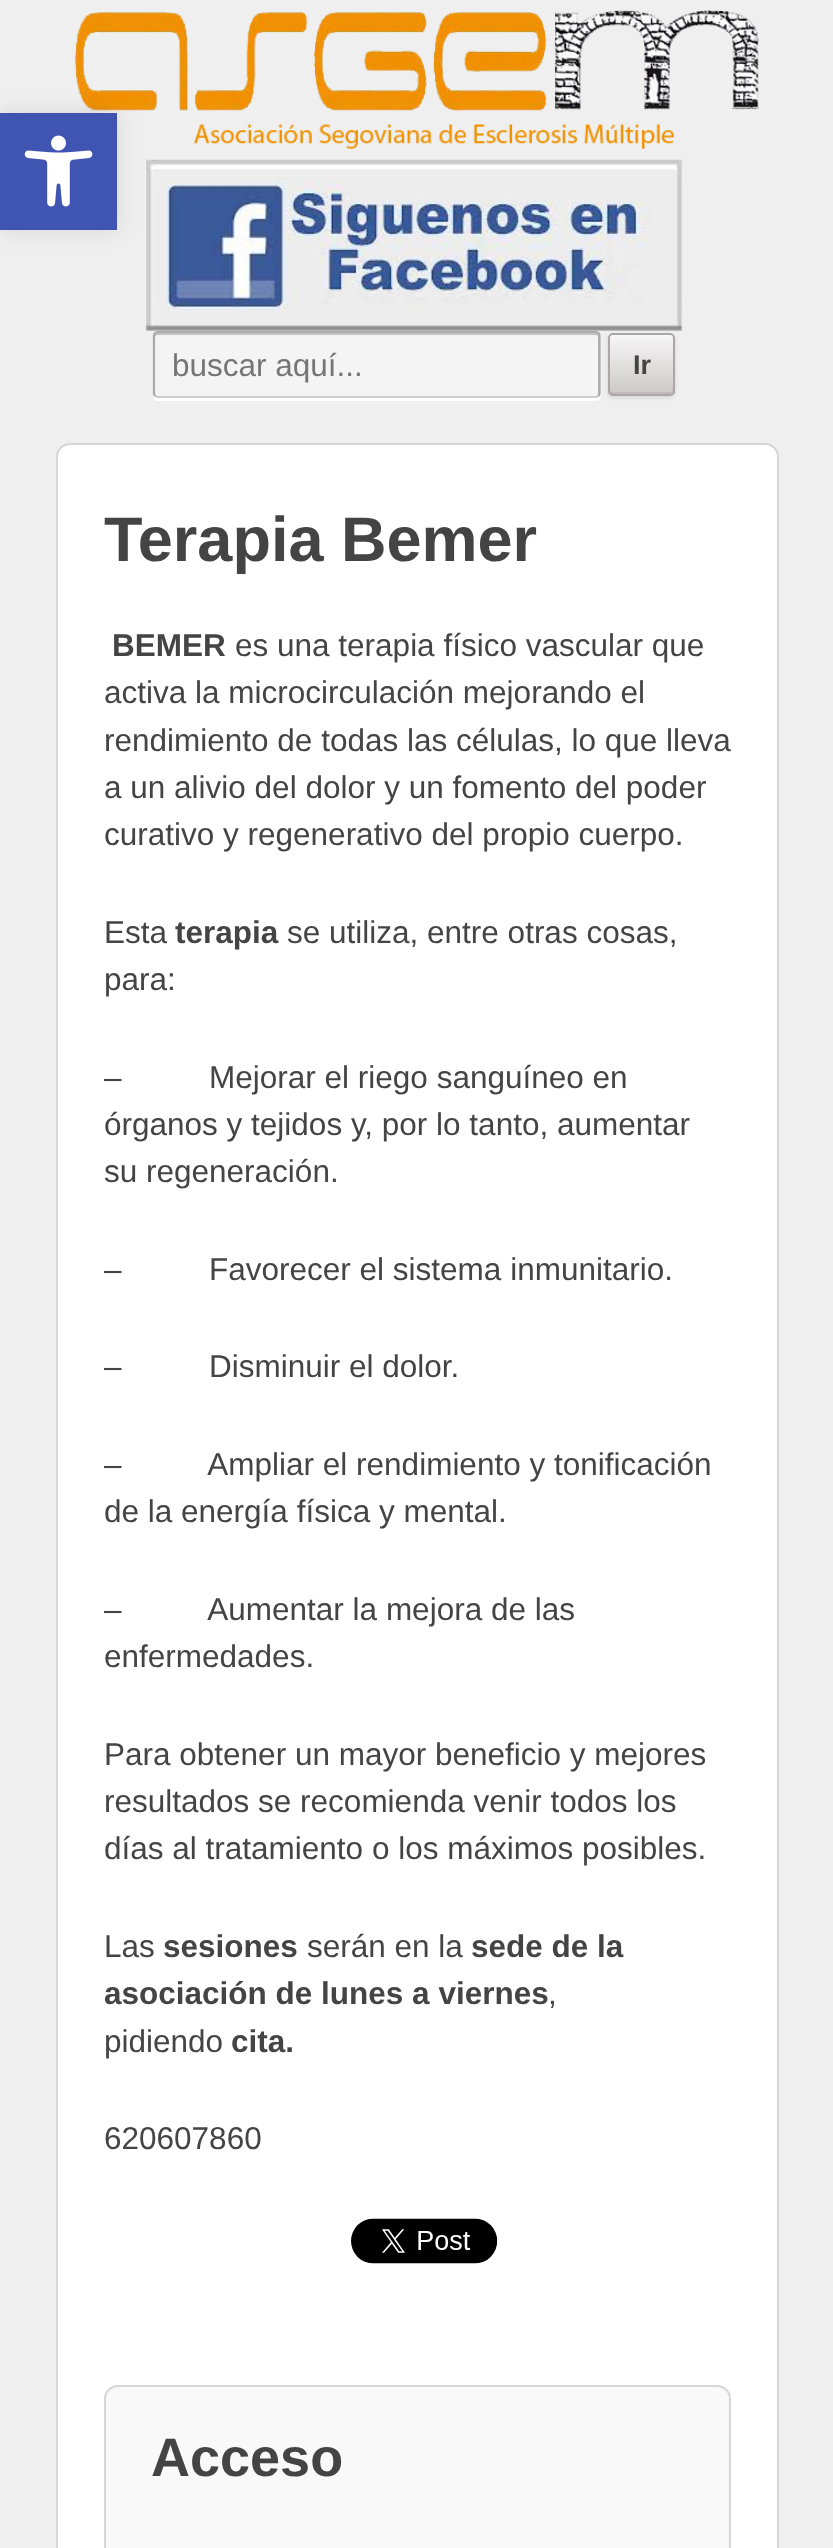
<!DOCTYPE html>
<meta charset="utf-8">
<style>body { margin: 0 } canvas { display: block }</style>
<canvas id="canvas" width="833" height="2548"></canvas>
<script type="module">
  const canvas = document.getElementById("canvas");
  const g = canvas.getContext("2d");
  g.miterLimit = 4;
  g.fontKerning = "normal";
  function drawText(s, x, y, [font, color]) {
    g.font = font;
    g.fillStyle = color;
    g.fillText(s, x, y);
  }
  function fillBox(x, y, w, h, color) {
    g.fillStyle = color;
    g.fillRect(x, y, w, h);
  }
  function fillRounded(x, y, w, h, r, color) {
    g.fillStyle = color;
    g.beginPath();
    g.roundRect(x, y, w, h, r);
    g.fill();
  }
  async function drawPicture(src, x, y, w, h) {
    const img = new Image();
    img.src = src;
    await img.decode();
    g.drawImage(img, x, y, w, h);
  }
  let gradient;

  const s1 = ["31.5px Liberation Sans", "#757575"];
  const s2 = ["bold 27px Liberation Sans", "#444444"];
  const s3 = ["bold 63px Liberation Sans", "#444444"];
  const s4 = ["bold 31.5px Liberation Sans", "#444444"];
  const s5 = ["31.5px Liberation Sans", "#444444"];
  const s6 = ["bold 54px Liberation Sans", "#444444"];

  fillBox(0, 0, 833, 2548, "#EFEFEF");
  await drawPicture("pic2.png", 74, 10, 685, 139);
  await drawPicture("pic3.png", 146, 159, 536, 172);
  g.fillStyle = "rgba(0, 0, 0, 0.1)";
  g.filter = "blur(11px)";
  g.beginPath();
  g.rect(0, 113, 117, 117);
  g.fill();
  g.filter = "none";
  fillBox(0, 113, 117, 117, "#4054B2");
  await drawPicture("pic1.png", 24, 135, 69, 72);
  g.fillStyle = "#FFFFFF";
  g.beginPath();
  g.moveTo(153, 394);
  g.lineTo(153, 396);
  g.bezierCurveTo(153, 399, 155, 401, 158, 401);
  g.lineTo(596, 401);
  g.bezierCurveTo(599, 401, 601, 399, 601, 396);
  g.lineTo(601, 336);
  g.lineTo(601, 394);
  g.bezierCurveTo(601, 396, 599, 398, 596, 398);
  g.lineTo(158, 398);
  g.bezierCurveTo(155, 398, 153, 396, 153, 394);
  g.closePath();
  g.fill();
  fillRounded(153, 331, 448, 67, 5, "#F4F4F4");
  g.fillStyle = "#C3C3C3";
  g.beginPath();
  g.moveTo(158, 335);
  g.lineTo(596, 335);
  g.bezierCurveTo(597, 335, 598, 336, 598, 338);
  g.lineTo(598, 396);
  g.lineTo(599, 394);
  g.lineTo(599, 335);
  g.bezierCurveTo(599, 334, 598, 333, 597, 333);
  g.lineTo(157, 333);
  g.bezierCurveTo(154, 333, 155, 336, 155, 338);
  g.bezierCurveTo(155, 336, 156, 335, 158, 335);
  g.closePath();
  g.fill();
  g.beginPath();
  g.moveTo(598.5, 396);
  g.lineTo(596, 397);
  g.lineTo(157.5, 397);
  g.lineTo(155, 396);
  g.strokeStyle = "#CCCCCC";
  g.lineWidth = 2.2;
  g.stroke();
  g.beginPath();
  g.moveTo(155, 396);
  g.lineTo(154, 394);
  g.lineTo(154, 335);
  g.lineTo(155, 333);
  g.lineTo(157.5, 332);
  g.lineTo(596, 332);
  g.lineTo(598.5, 333);
  g.lineTo(599.5, 335);
  g.lineTo(599.5, 394);
  g.lineTo(598.5, 396);
  g.strokeStyle = "#AAAAAA";
  g.stroke();
  drawText("buscar aquí...", 172, 376, s1);
  g.fillStyle = "rgba(0, 0, 0, 0.1)";
  g.filter = "blur(2px)";
  g.beginPath();
  g.roundRect(608, 335, 67, 63, 5);
  g.fill();
  g.filter = "none";
  g.save();
  g.beginPath();
  g.roundRect(608, 333, 67, 63, 5);
  g.clip();
  gradient = g.createLinearGradient(641, 335, 641, 394);
  gradient.addColorStop(0, "#F6F5F5");
  gradient.addColorStop(1, "#CDC9C9");
  g.fillStyle = gradient;
  g.fillRect(608, 335, 67, 59);
  g.restore();
  g.fillStyle = "rgba(255, 255, 255, 0.3)";
  g.beginPath();
  g.moveTo(612, 338);
  g.lineTo(670, 338);
  g.bezierCurveTo(672, 338, 673, 339, 673, 340);
  g.bezierCurveTo(673, 332, 670, 335, 661, 335);
  g.lineTo(622, 335);
  g.bezierCurveTo(613, 335, 610, 332, 610, 340);
  g.bezierCurveTo(610, 339, 611, 338, 612, 338);
  g.closePath();
  g.fill();
  g.fillStyle = "rgba(0, 0, 0, 0.07)";
  g.beginPath();
  g.moveTo(610, 389);
  g.bezierCurveTo(610, 397, 613, 394, 622, 394);
  g.lineTo(661, 394);
  g.bezierCurveTo(670, 394, 673, 397, 673, 389);
  g.bezierCurveTo(673, 390, 672, 392, 670, 392);
  g.lineTo(612, 392);
  g.bezierCurveTo(611, 392, 610, 390, 610, 389);
  g.closePath();
  g.fill();
  g.beginPath();
  g.roundRect(609, 334, 65, 61, 4);
  g.strokeStyle = "#ACA6A6";
  g.lineWidth = 2;
  g.stroke();
  drawText("Ir", 633, 374, s2);
  g.fillStyle = "#FFFFFF";
  g.beginPath();
  g.roundRect(57, 444, 721, 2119, 13);
  g.fill();
  g.strokeStyle = "#D6D6D6";
  g.stroke();
  drawText("Terapia Bemer", 104, 561, s3);
  drawText("BEMER", 112, 656, s4);
  drawText("es una terapia físico vascular que", 235, 656, s5);
  drawText("activa la microcirculación mejorando el", 104, 703, s5);
  drawText("rendimiento de todas las células, lo que lleva", 104, 751, s5);
  drawText("a un alivio del dolor y un fomento del poder", 104, 798, s5);
  drawText("curativo y regenerativo del propio cuerpo.", 104, 845, s5);
  drawText("Esta", 104, 943, s5);
  drawText("terapia", 175, 943, s4);
  drawText("se utiliza, entre otras cosas,", 287, 943, s5);
  drawText("para:", 104, 990, s5);
  drawText("–          Mejorar el riego sanguíneo en", 104, 1088, s5);
  drawText("órganos y tejidos y, por lo tanto, aumentar", 104, 1135, s5);
  drawText("su regeneración.", 104, 1182, s5);
  drawText("–          Favorecer el sistema inmunitario.", 104, 1280, s5);
  drawText("–          Disminuir el dolor.", 104, 1377, s5);
  drawText("–          Ampliar el rendimiento y tonificación", 104, 1475, s5);
  drawText("de la energía física y mental.", 104, 1522, s5);
  drawText("–          Aumentar la mejora de las", 104, 1620, s5);
  drawText("enfermedades.", 104, 1667, s5);
  drawText("Para obtener un mayor beneficio y mejores", 104, 1765, s5);
  drawText("resultados se recomienda venir todos los", 104, 1812, s5);
  drawText("días al tratamiento o los máximos posibles.", 104, 1859, s5);
  drawText("Las", 104, 1957, s5);
  drawText("sesiones", 163, 1957, s4);
  drawText("serán en la", 307, 1957, s5);
  drawText("sede de la", 471, 1957, s4);
  drawText("asociación de lunes a viernes", 104, 2004, s4);
  drawText(",", 548, 2004, s5);
  drawText("pidiendo", 104, 2052, s5);
  drawText("cita.", 231, 2052, s4);
  drawText("620607860", 104, 2149, s5);
  await drawPicture("pic4.png", 351, 2218, 147, 46);
  g.fillStyle = "#F9F9F9";
  g.beginPath();
  g.roundRect(105, 2386, 625, 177, 13);
  g.fill();
  g.stroke();
  drawText("Acceso", 151, 2476, s6);
</script>
